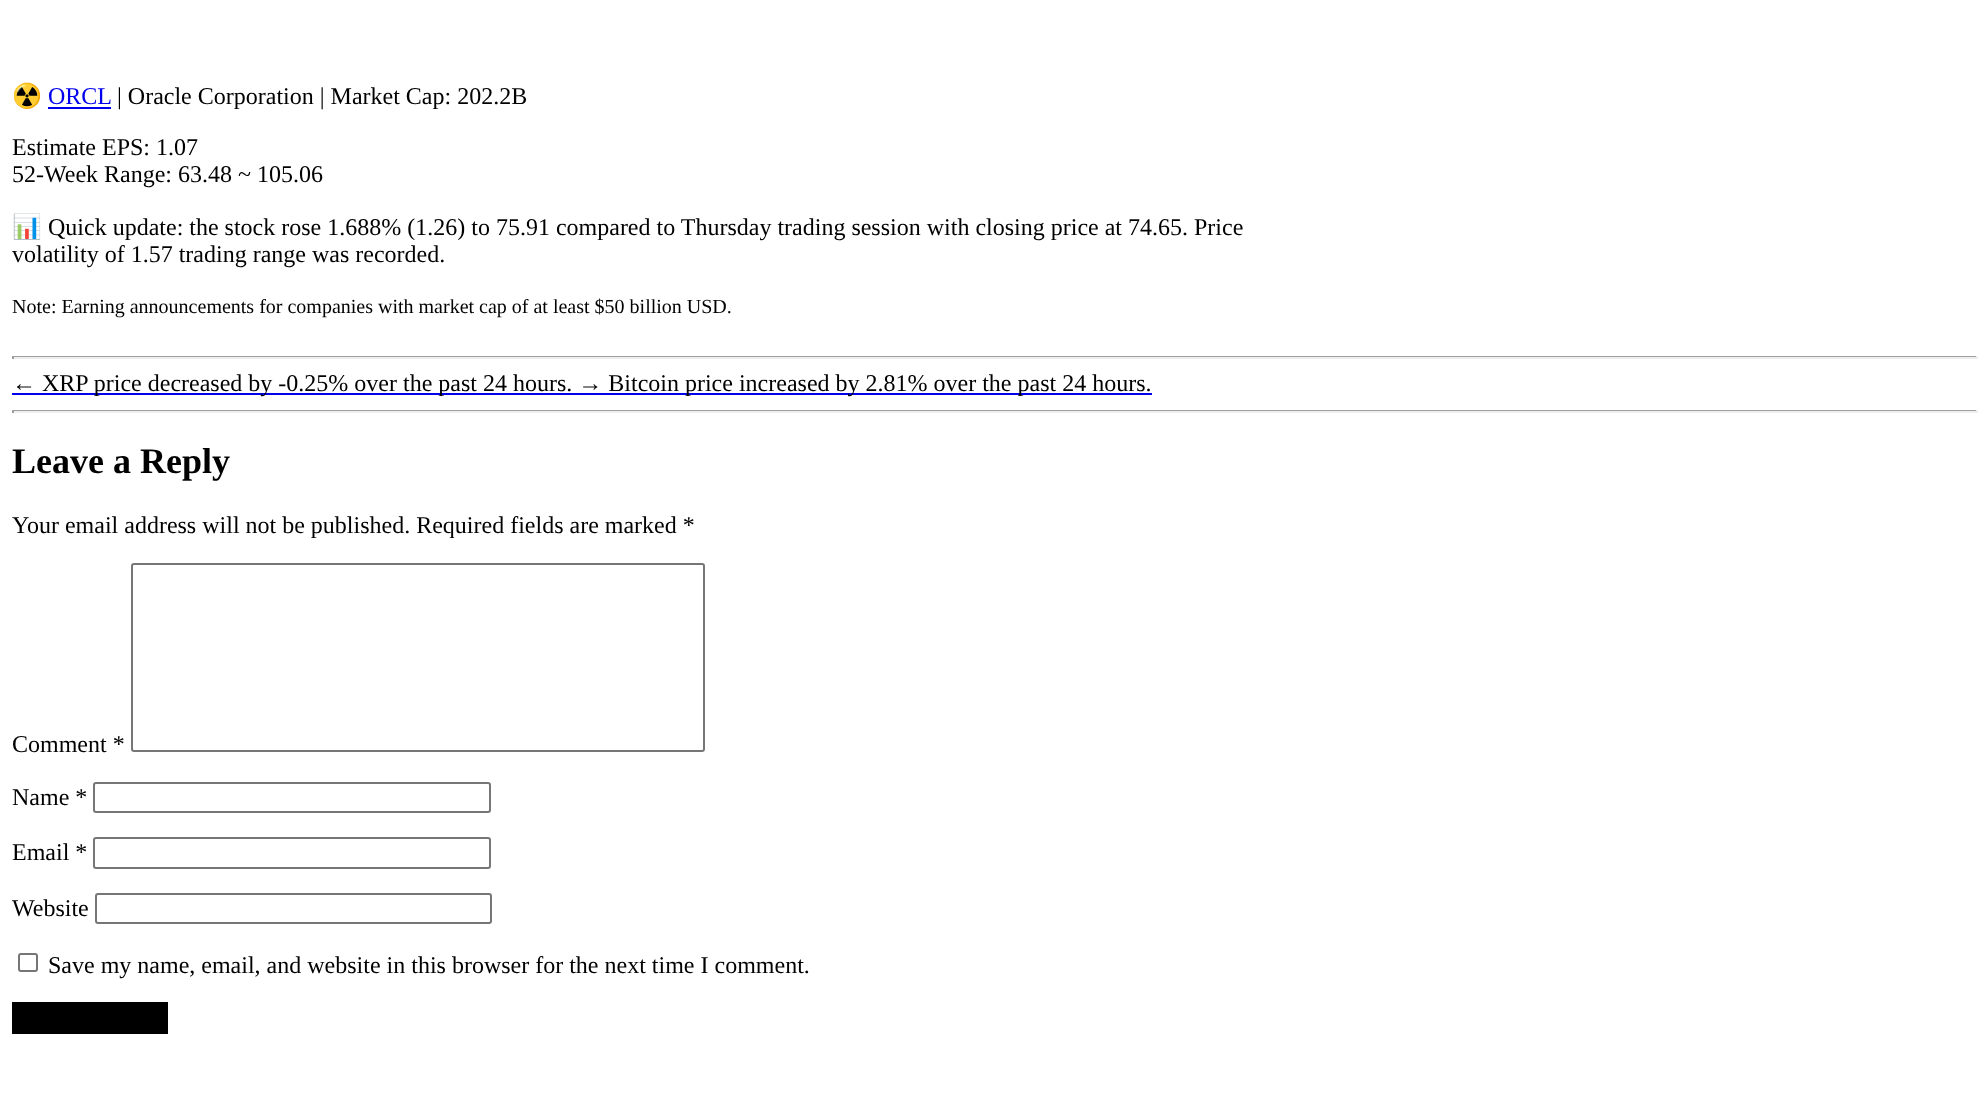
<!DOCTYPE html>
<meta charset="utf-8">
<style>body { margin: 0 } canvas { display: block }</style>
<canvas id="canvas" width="1988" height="1099"></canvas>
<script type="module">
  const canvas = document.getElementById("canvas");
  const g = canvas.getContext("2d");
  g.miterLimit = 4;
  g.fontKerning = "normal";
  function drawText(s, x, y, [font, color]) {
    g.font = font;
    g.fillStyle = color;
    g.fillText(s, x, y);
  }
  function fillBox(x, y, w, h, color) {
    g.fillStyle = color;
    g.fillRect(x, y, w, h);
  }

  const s1 = ["24px Noto Color Emoji", "#000000"];
  const s2 = ["24px Liberation Serif", "#0000EE"];
  const s3 = ["24px Liberation Serif", "#000000"];
  const s4 = ["20px Liberation Serif", "#000000"];
  const s5 = ["bold 36px Liberation Serif", "#000000"];

  fillBox(0, 0, 1988, 1099, "#FFFFFF");
  drawText("☢️", 12, 104, s1);
  drawText("ORCL", 48, 104, s2);
  fillBox(48, 107, 63, 2, "#0000EE");
  drawText("| Oracle Corporation | Market Cap: 202.2B", 117, 104, s3);
  drawText("Estimate EPS: 1.07", 12, 155, s3);
  drawText("52-Week Range: 63.48 ~ 105.06", 12, 182, s3);
  drawText("📊", 12, 235, s1);
  drawText("Quick update: the stock rose 1.688% (1.26) to 75.91 compared to Thursday trading session with closing price at 74.65. Price", 48, 235, s3);
  drawText("volatility of 1.57 trading range was recorded.", 12, 262, s3);
  drawText("Note: Earning announcements for companies with market cap of at least $50 billion USD.", 12, 313, s4);
  fillBox(12, 356, 1965, 1, "#9F9F9F");
  fillBox(1976, 356, 2, 3, "#EEEEEE");
  fillBox(12, 357, 1965, 2, "#EEEEEE");
  fillBox(12, 356, 2, 3, "#9F9F9F");
  fillBox(12, 393, 1140, 2, "#0000EE");
  drawText("← XRP price decreased by -0.25% over the past 24 hours. → Bitcoin price increased by 2.81% over the past 24 hours.", 12, 391, s3);
  fillBox(12, 410, 1965, 1, "#9F9F9F");
  fillBox(1976, 410, 2, 3, "#EEEEEE");
  fillBox(12, 411, 1965, 2, "#EEEEEE");
  fillBox(12, 410, 2, 3, "#9F9F9F");
  drawText("Leave a Reply", 12, 473, s5);
  drawText("Your email address will not be published. Required fields are marked *", 12, 533, s3);
  drawText("Comment *", 12, 752, s3);
  g.beginPath();
  g.roundRect(132, 564, 572, 187, 2);
  g.strokeStyle = "#767676";
  g.lineWidth = 2;
  g.stroke();
  drawText("Name *", 12, 805, s3);
  g.beginPath();
  g.roundRect(94, 783, 396, 29, 2);
  g.stroke();
  drawText("Email *", 12, 860, s3);
  g.beginPath();
  g.roundRect(94, 838, 396, 30, 2);
  g.stroke();
  drawText("Website", 12, 916, s3);
  g.beginPath();
  g.roundRect(96, 894, 395, 29, 2);
  g.stroke();
  g.beginPath();
  g.roundRect(19, 954, 18, 17, 2);
  g.stroke();
  drawText("Save my name, email, and website in this browser for the next time I comment.", 48, 973, s3);
  fillBox(12, 1002, 156, 32, "#000000");
</script>
